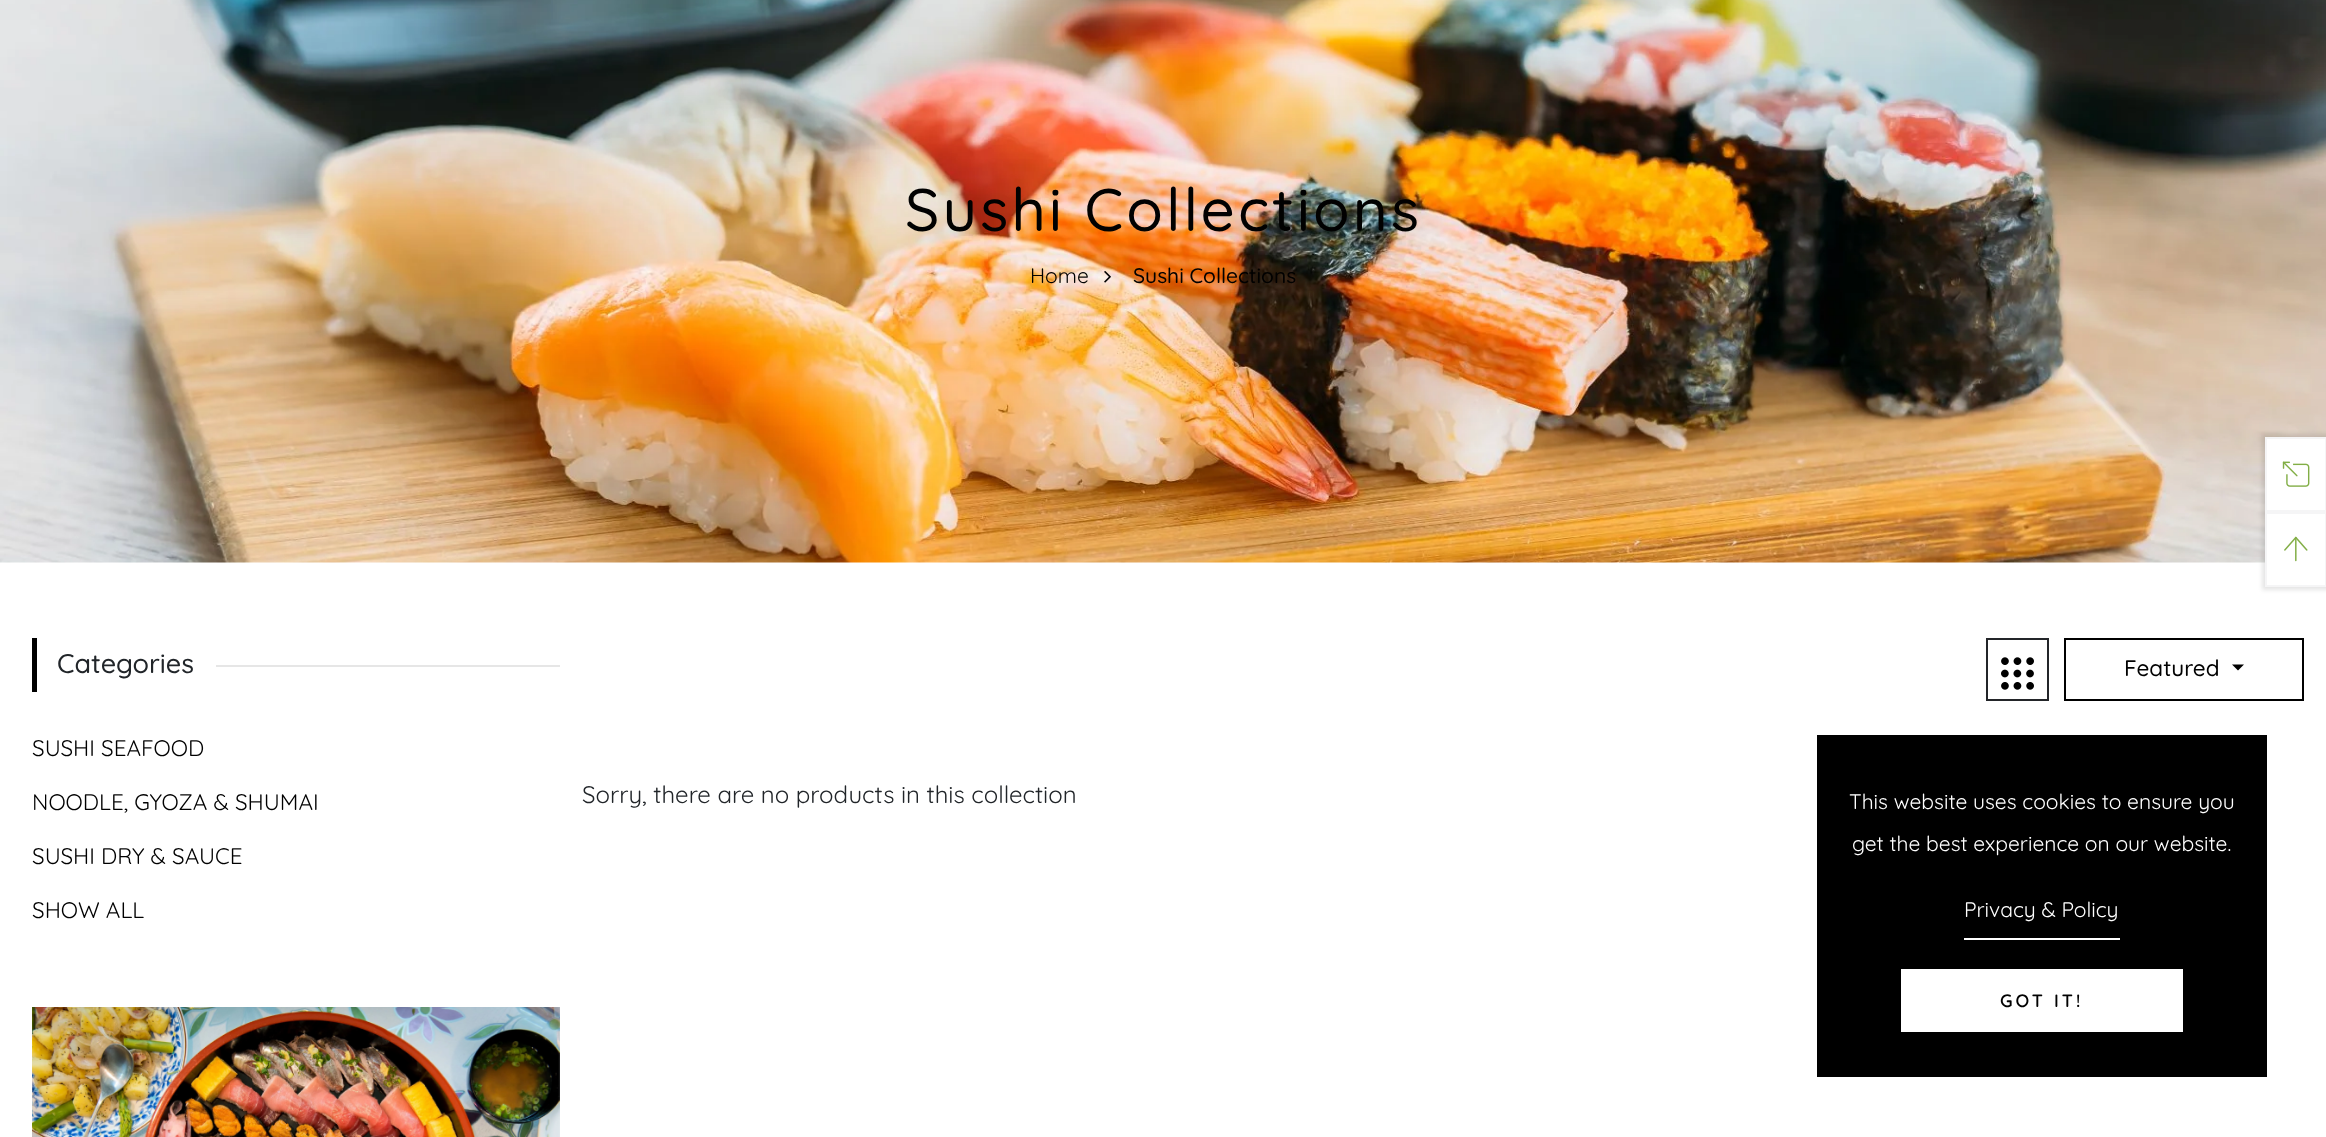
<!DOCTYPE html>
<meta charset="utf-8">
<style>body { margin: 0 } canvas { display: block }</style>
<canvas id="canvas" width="2326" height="1137"></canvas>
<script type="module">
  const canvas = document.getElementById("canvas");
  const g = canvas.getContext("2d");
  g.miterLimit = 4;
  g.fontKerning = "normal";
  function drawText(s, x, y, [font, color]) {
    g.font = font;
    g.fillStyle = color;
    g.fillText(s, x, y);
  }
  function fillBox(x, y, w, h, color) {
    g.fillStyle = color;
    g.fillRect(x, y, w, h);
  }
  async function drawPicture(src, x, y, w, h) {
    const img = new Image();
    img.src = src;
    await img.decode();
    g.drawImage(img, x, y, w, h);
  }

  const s1 = ["500 60px Quicksand", "#010101"];
  const s2 = ["21px Quicksand", "#010101"];
  const s3 = ["500 21px Quicksand", "#010101"];
  const s4 = ["500 27px Quicksand", "#212529"];
  const s5 = ["22.5px Quicksand", "#010101"];
  const s6 = ["500 22.5px Quicksand", "#010101"];
  const s7 = ["24px Quicksand", "#212529"];
  const s8 = ["21px Quicksand", "#FFFFFF"];
  const s9 = ["600 18px Quicksand", "#010101"];

  fillBox(0, 0, 2326, 1137, "#FFFFFF");
  await drawPicture("pic1.png", 0, 0, 2326, 563);
  g.letterSpacing = "3px";
  drawText("Sushi Collections", 905, 231, s1);
  g.letterSpacing = "0px";
  drawText("Home", 1030, 283, s2);
  await drawPicture("pic2.png", 1104, 271, 7, 12);
  drawText("Sushi Collections", 1133, 283, s3);
  fillBox(32, 638, 5, 54, "#000000");
  drawText("Categories", 57, 673, s4);
  fillBox(216, 665, 344, 2, "#E6E6E6");
  drawText("SUSHI SEAFOOD", 32, 756, s5);
  drawText("NOODLE, GYOZA & SHUMAI", 32, 810, s5);
  drawText("SUSHI DRY & SAUCE", 32, 864, s5);
  drawText("SHOW ALL", 32, 918, s5);
  await drawPicture("pic3.png", 32, 1007, 528, 130);
  g.strokeStyle = "#232529";
  g.lineWidth = 2;
  g.strokeRect(1987, 639, 61, 61);
  await drawPicture("pic4.png", 2001, 657, 33, 33);
  g.strokeStyle = "#000000";
  g.strokeRect(2065, 639, 238, 61);
  drawText("Featured", 2124, 676, s6);
  g.fillStyle = "#000000";
  g.beginPath();
  g.moveTo(2232, 664.5);
  g.lineTo(2244, 664.5);
  g.lineTo(2238, 670.5);
  g.closePath();
  g.fill();
  drawText("Sorry, there are no products in this collection", 582, 803, s7);
  g.fillStyle = "rgba(0, 0, 0, 0.1)";
  g.filter = "blur(2px)";
  g.beginPath();
  g.rect(2262, 434, 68, 156);
  g.fill();
  g.filter = "none";
  fillBox(2267, 439, 58, 146, "#FFFFFF");
  g.strokeStyle = "#F5F5F6";
  g.strokeRect(2266, 438, 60, 73);
  await drawPicture("pic5.png", 2282, 461, 28, 26);
  g.strokeRect(2266, 513, 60, 73);
  await drawPicture("pic6.png", 2284, 536, 24, 26);
  fillBox(1817, 735, 450, 342, "#000000");
  drawText("This website uses cookies to ensure you", 1849, 809, s8);
  drawText("get the best experience on our website.", 1852, 851, s8);
  fillBox(1964, 938, 156, 2, "#FFFFFF");
  drawText("Privacy & Policy", 1964, 917, s8);
  fillBox(1901, 969, 282, 63, "#FFFFFF");
  g.letterSpacing = "3px";
  drawText("GOT IT!", 2000, 1007, s9);
</script>
